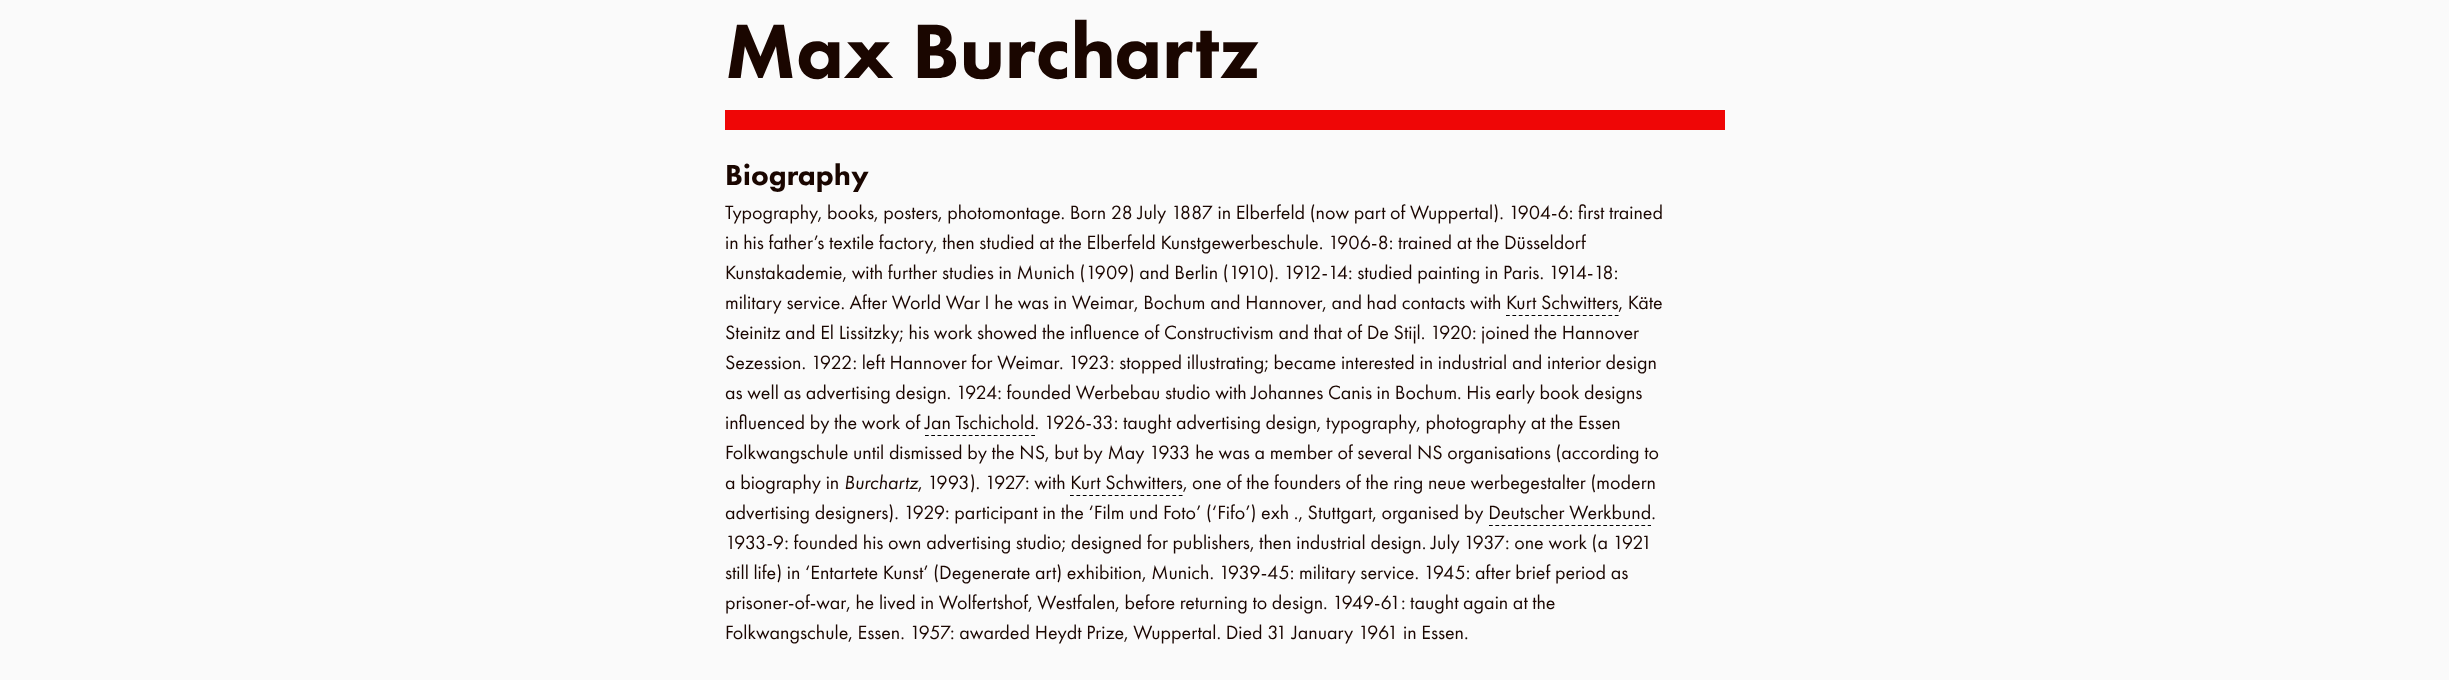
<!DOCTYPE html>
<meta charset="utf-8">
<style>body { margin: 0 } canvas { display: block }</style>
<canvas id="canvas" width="2449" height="680"></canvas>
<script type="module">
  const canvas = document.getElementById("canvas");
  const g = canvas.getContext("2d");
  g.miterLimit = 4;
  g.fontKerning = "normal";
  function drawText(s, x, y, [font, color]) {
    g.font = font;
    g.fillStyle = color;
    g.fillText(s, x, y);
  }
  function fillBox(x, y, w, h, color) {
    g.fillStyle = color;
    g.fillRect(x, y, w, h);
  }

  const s1 = ["900 80px Futura PT", "#1A0600"];
  const s2 = ["900 30px Futura PT", "#1A0600"];
  const s3 = ["20px Futura PT", "#1A0600"];
  const s4 = ["italic 20px Futura PT", "#1A0600"];

  fillBox(0, 0, 2449, 680, "#FAFAFA");
  fillBox(725, 110, 1000, 20, "#EF0606");
  drawText("Max Burchartz", 725, 78, s1);
  drawText("Biography", 725, 185, s2);
  drawText("Typography, books, posters, photomontage. Born 28 July 1887 in Elberfeld (now part of Wuppertal). 1904-6: first trained", 725, 219, s3);
  drawText("in his father’s textile factory, then studied at the Elberfeld Kunstgewerbeschule. 1906-8: trained at the Düsseldorf", 725, 249, s3);
  drawText("Kunstakademie, with further studies in Munich (1909) and Berlin (1910). 1912-14: studied painting in Paris. 1914-18:", 725, 279, s3);
  drawText("military service. After World War I he was in Weimar, Bochum and Hannover, and had contacts with Kurt Schwitters, Käte", 725, 309, s3);
  g.beginPath();
  g.moveTo(1506, 315.5);
  g.lineTo(1619, 315.5);
  g.strokeStyle = "#000000";
  g.lineWidth = 1.2;
  g.setLineDash([3.75, 2.65]);
  g.stroke();
  drawText("Steinitz and El Lissitzky; his work showed the influence of Constructivism and that of De Stijl. 1920: joined the Hannover", 725, 339, s3);
  drawText("Sezession. 1922: left Hannover for Weimar", 725, 369, s3);
  drawText(". 1923: stopped illustrating; became interested in industrial and interior design", 1059, 369, s3);
  drawText("as well as advertising design. 1924: founded Werbebau studio with Johannes Canis in Bochum. His early book designs", 725, 399, s3);
  drawText("influenced by the work of Jan Tschichold. 1926-33: taught advertising design, typography, photography at the Essen", 725, 429, s3);
  g.beginPath();
  g.moveTo(925, 435.5);
  g.lineTo(1035, 435.5);
  g.setLineDash([3.75, 2.5]);
  g.stroke();
  drawText("Folkwangschule until dismissed by the NS, but by May 1933 he was a member of several NS organisations (according to", 725, 459, s3);
  drawText("a biography in", 725, 489, s3);
  drawText("Burchartz", 844, 489, s4);
  drawText(", 1993). 1927", 918, 489, s3);
  drawText(": with Kurt Schwitters, one of the founders of the ring neue werbegestalter (modern", 1025, 489, s3);
  g.beginPath();
  g.moveTo(1070, 495.5);
  g.lineTo(1182.5, 495.5);
  g.setLineDash([3.75, 2.65]);
  g.stroke();
  drawText("advertising designers). 1929: participant in the ‘Film und Foto’ (‘Fifo’) exh ., Stuttgart, organised by Deutscher Werkbund.", 725, 519, s3);
  g.beginPath();
  g.moveTo(1489, 525.5);
  g.lineTo(1651, 525.5);
  g.setLineDash([3.75, 2.6]);
  g.stroke();
  drawText("1933-9: founded his own advertising studio; designed for publishers, then industrial design.", 725, 549, s3);
  g.wordSpacing = "-1px";
  drawText("July 1937", 1431, 549, s3);
  g.wordSpacing = "0px";
  drawText(": one work (a 1921", 1505, 549, s3);
  drawText("still life) in ‘Entartete Kunst’ (Degenerate art) exhibition, Munich. 1939-45: military service. 1945: after brief period as", 725, 579, s3);
  drawText("prisoner-of-war, he lived in Wolfertshof, Westfalen, before returning to design. 1949-61: taught again at the", 725, 609, s3);
  drawText("Folkwangschule, Essen. 1957", 725, 639, s3);
  drawText(": awarded Heydt Prize, Wuppertal. Died 31 January 1961 in Essen.", 950, 639, s3);
</script>
